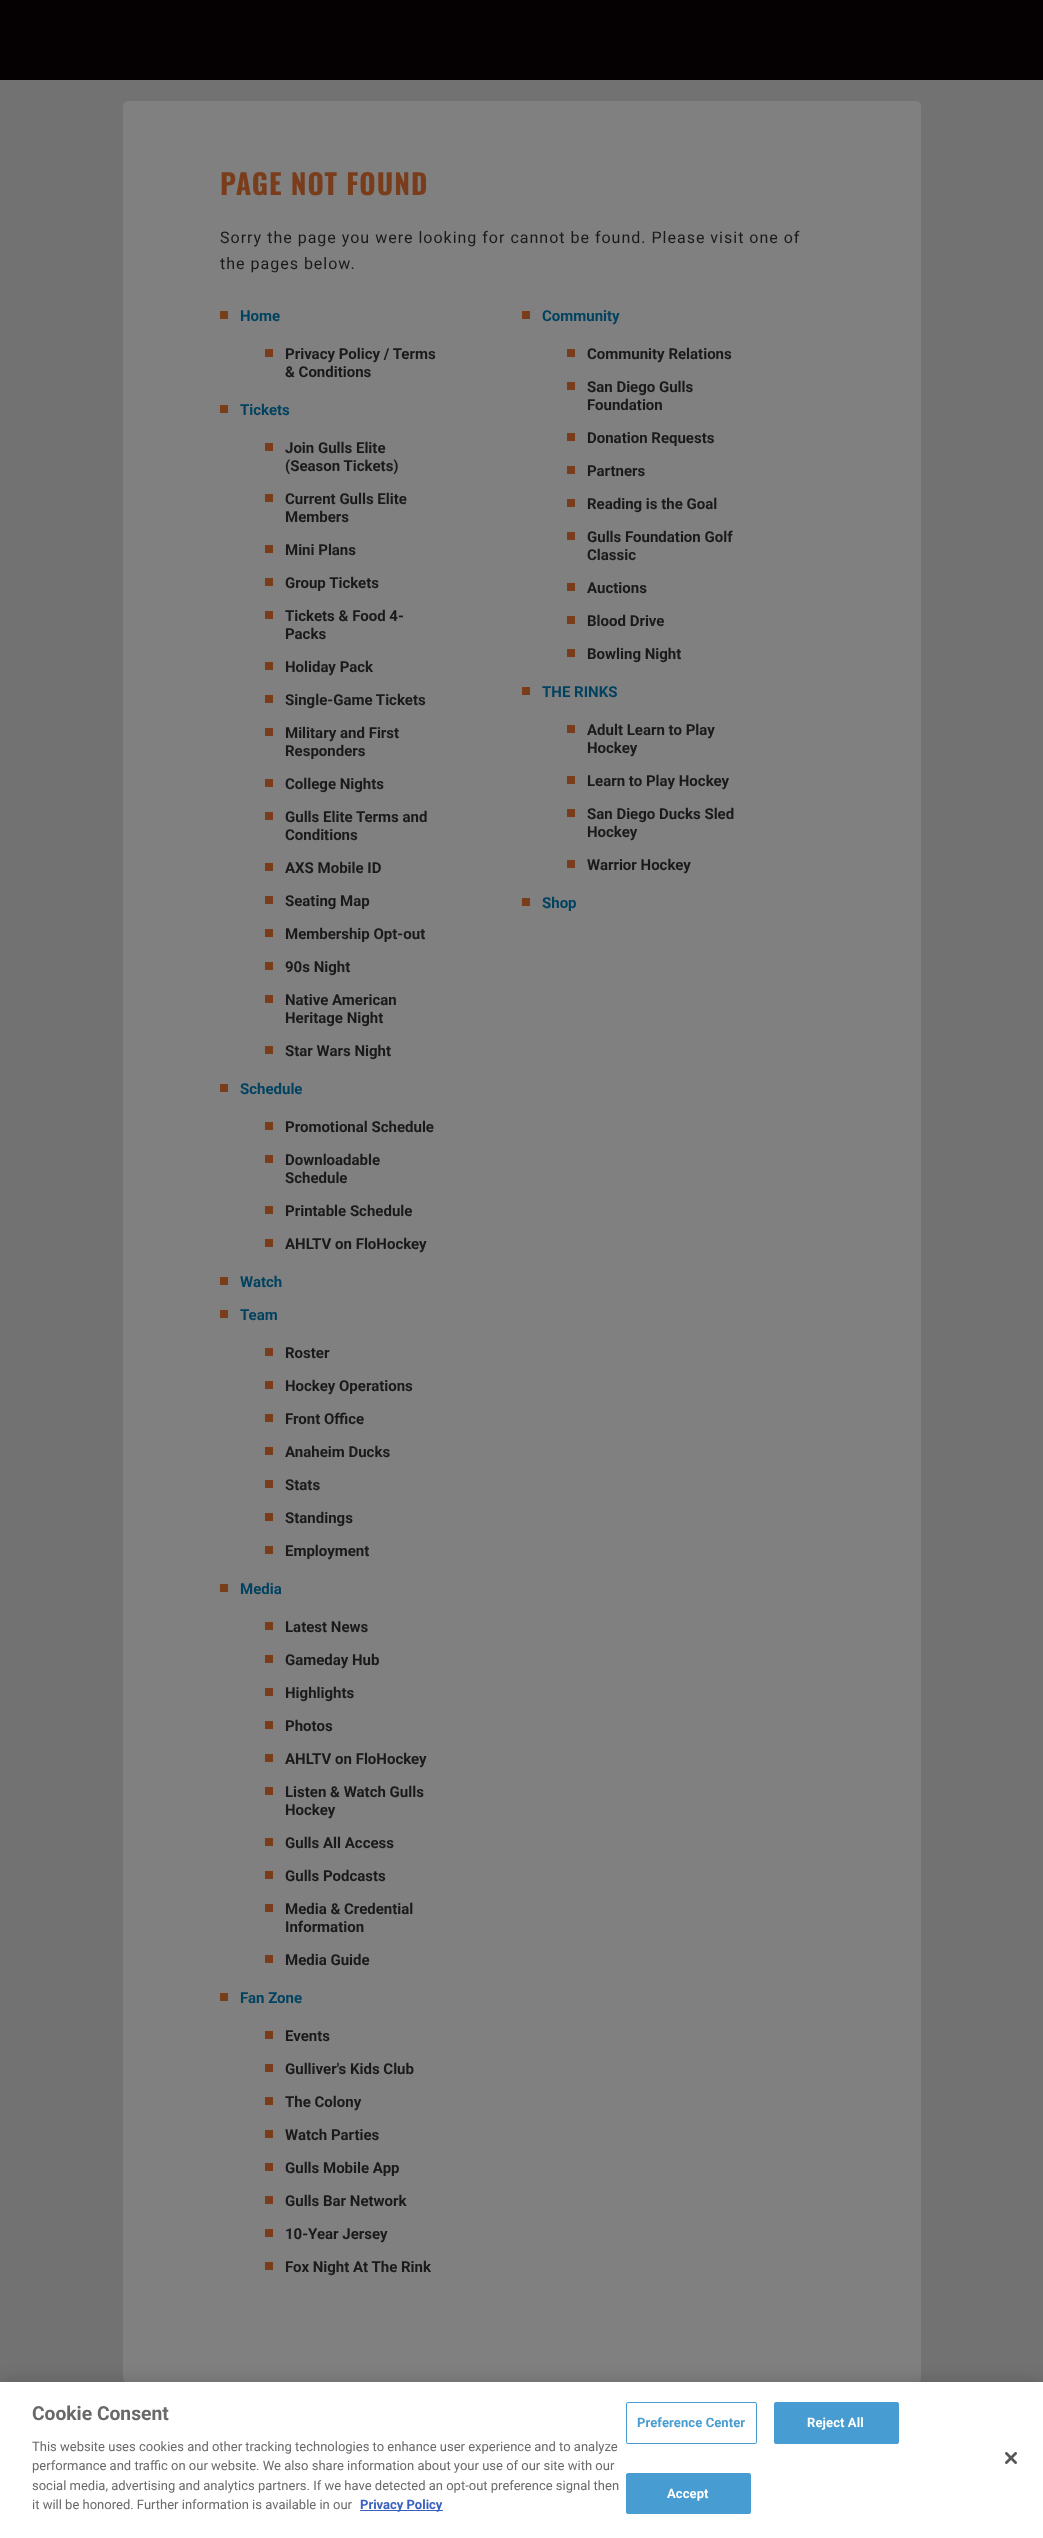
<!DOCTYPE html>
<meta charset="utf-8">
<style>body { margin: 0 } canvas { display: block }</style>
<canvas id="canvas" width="1043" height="2538"></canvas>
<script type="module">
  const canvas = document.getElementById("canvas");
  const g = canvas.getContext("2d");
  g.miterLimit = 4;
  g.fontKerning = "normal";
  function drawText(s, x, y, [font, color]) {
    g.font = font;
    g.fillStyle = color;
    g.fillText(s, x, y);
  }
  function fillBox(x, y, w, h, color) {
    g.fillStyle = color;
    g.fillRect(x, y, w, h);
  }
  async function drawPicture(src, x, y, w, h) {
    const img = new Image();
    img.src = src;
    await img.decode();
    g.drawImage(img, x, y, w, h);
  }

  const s1 = ["bold 28px Oswald", "#7A3D1C"];
  const s2 = ["16px Roboto", "#1A1A1A"];
  const s3 = ["bold 15px Roboto", "#004260"];
  const s4 = ["bold 15px Roboto", "#1A1A1A"];
  const s5 = ["bold 19.25px Roboto", "#696969"];
  const s6 = ["13px Roboto", "#696969"];
  const s7 = ["bold 13px Roboto", "#3860BE"];
  const s8 = ["bold 13px Roboto", "#479CD1"];
  const s9 = ["bold 13px Roboto", "#FFFFFF"];

  fillBox(0, 0, 1043, 2538, "#727272");
  fillBox(0, 0, 1043, 80, "#050102");
  g.fillStyle = "#808080";
  g.beginPath();
  g.roundRect(122.5, 100.5, 799, 2283, 5.5);
  g.fill();
  g.strokeStyle = "#727272";
  g.stroke();
  g.letterSpacing = "1px";
  drawText("PAGE NOT FOUND", 220, 195, s1);
  drawText("Sorry the page you were looking for cannot be found. Please visit one of", 220, 243, s2);
  drawText("the pages below.", 220, 269, s2);
  fillBox(220, 311, 8, 8, "#7A3D1C");
  g.letterSpacing = "0px";
  drawText("Home", 240, 321, s3);
  fillBox(265, 349, 8, 8, "#7A3D1C");
  drawText("Privacy Policy / Terms", 285, 359, s4);
  drawText("& Conditions", 285, 377, s4);
  fillBox(220, 405, 8, 8, "#7A3D1C");
  drawText("Tickets", 240, 415, s3);
  fillBox(265, 443, 8, 8, "#7A3D1C");
  drawText("Join Gulls Elite", 285, 453, s4);
  drawText("(Season Tickets)", 285, 471, s4);
  fillBox(265, 494, 8, 8, "#7A3D1C");
  drawText("Current Gulls Elite", 285, 504, s4);
  drawText("Members", 285, 522, s4);
  fillBox(265, 545, 8, 8, "#7A3D1C");
  drawText("Mini Plans", 285, 555, s4);
  fillBox(265, 578, 8, 8, "#7A3D1C");
  drawText("Group Tickets", 285, 588, s4);
  fillBox(265, 611, 8, 8, "#7A3D1C");
  drawText("Tickets & Food 4-", 285, 621, s4);
  drawText("Packs", 285, 639, s4);
  fillBox(265, 662, 8, 8, "#7A3D1C");
  drawText("Holiday Pack", 285, 672, s4);
  fillBox(265, 695, 8, 8, "#7A3D1C");
  drawText("Single-Game Tickets", 285, 705, s4);
  fillBox(265, 728, 8, 8, "#7A3D1C");
  drawText("Military and First", 285, 738, s4);
  drawText("Responders", 285, 756, s4);
  fillBox(265, 779, 8, 8, "#7A3D1C");
  drawText("College Nights", 285, 789, s4);
  fillBox(265, 812, 8, 8, "#7A3D1C");
  drawText("Gulls Elite Terms and", 285, 822, s4);
  drawText("Conditions", 285, 840, s4);
  fillBox(265, 863, 8, 8, "#7A3D1C");
  drawText("AXS Mobile ID", 285, 873, s4);
  fillBox(265, 896, 8, 8, "#7A3D1C");
  drawText("Seating Map", 285, 906, s4);
  fillBox(265, 929, 8, 8, "#7A3D1C");
  drawText("Membership Opt-out", 285, 939, s4);
  fillBox(265, 962, 8, 8, "#7A3D1C");
  drawText("90s Night", 285, 972, s4);
  fillBox(265, 995, 8, 8, "#7A3D1C");
  drawText("Native American", 285, 1005, s4);
  drawText("Heritage Night", 285, 1023, s4);
  fillBox(265, 1046, 8, 8, "#7A3D1C");
  drawText("Star Wars Night", 285, 1056, s4);
  fillBox(220, 1084, 8, 8, "#7A3D1C");
  drawText("Schedule", 240, 1094, s3);
  fillBox(265, 1122, 8, 8, "#7A3D1C");
  drawText("Promotional Schedule", 285, 1132, s4);
  fillBox(265, 1155, 8, 8, "#7A3D1C");
  drawText("Downloadable", 285, 1165, s4);
  drawText("Schedule", 285, 1183, s4);
  fillBox(265, 1206, 8, 8, "#7A3D1C");
  drawText("Printable Schedule", 285, 1216, s4);
  fillBox(265, 1239, 8, 8, "#7A3D1C");
  drawText("AHLTV on FloHockey", 285, 1249, s4);
  fillBox(220, 1277, 8, 8, "#7A3D1C");
  drawText("Watch", 240, 1287, s3);
  fillBox(220, 1310, 8, 8, "#7A3D1C");
  drawText("Team", 240, 1320, s3);
  fillBox(265, 1348, 8, 8, "#7A3D1C");
  drawText("Roster", 285, 1358, s4);
  fillBox(265, 1381, 8, 8, "#7A3D1C");
  drawText("Hockey Operations", 285, 1391, s4);
  fillBox(265, 1414, 8, 8, "#7A3D1C");
  drawText("Front Office", 285, 1424, s4);
  fillBox(265, 1447, 8, 8, "#7A3D1C");
  drawText("Anaheim Ducks", 285, 1457, s4);
  fillBox(265, 1480, 8, 8, "#7A3D1C");
  drawText("Stats", 285, 1490, s4);
  fillBox(265, 1513, 8, 8, "#7A3D1C");
  drawText("Standings", 285, 1523, s4);
  fillBox(265, 1546, 8, 8, "#7A3D1C");
  drawText("Employment", 285, 1556, s4);
  fillBox(220, 1584, 8, 8, "#7A3D1C");
  drawText("Media", 240, 1594, s3);
  fillBox(265, 1622, 8, 8, "#7A3D1C");
  drawText("Latest News", 285, 1632, s4);
  fillBox(265, 1655, 8, 8, "#7A3D1C");
  drawText("Gameday Hub", 285, 1665, s4);
  fillBox(265, 1688, 8, 8, "#7A3D1C");
  drawText("Highlights", 285, 1698, s4);
  fillBox(265, 1721, 8, 8, "#7A3D1C");
  drawText("Photos", 285, 1731, s4);
  fillBox(265, 1754, 8, 8, "#7A3D1C");
  drawText("AHLTV on FloHockey", 285, 1764, s4);
  fillBox(265, 1787, 8, 8, "#7A3D1C");
  drawText("Listen & Watch Gulls", 285, 1797, s4);
  drawText("Hockey", 285, 1815, s4);
  fillBox(265, 1838, 8, 8, "#7A3D1C");
  drawText("Gulls All Access", 285, 1848, s4);
  fillBox(265, 1871, 8, 8, "#7A3D1C");
  drawText("Gulls Podcasts", 285, 1881, s4);
  fillBox(265, 1904, 8, 8, "#7A3D1C");
  drawText("Media & Credential", 285, 1914, s4);
  drawText("Information", 285, 1932, s4);
  fillBox(265, 1955, 8, 8, "#7A3D1C");
  drawText("Media Guide", 285, 1965, s4);
  fillBox(220, 1993, 8, 8, "#7A3D1C");
  drawText("Fan Zone", 240, 2003, s3);
  fillBox(265, 2031, 8, 8, "#7A3D1C");
  drawText("Events", 285, 2041, s4);
  fillBox(265, 2064, 8, 8, "#7A3D1C");
  drawText("Gulliver's Kids Club", 285, 2074, s4);
  fillBox(265, 2097, 8, 8, "#7A3D1C");
  drawText("The Colony", 285, 2107, s4);
  fillBox(265, 2130, 8, 8, "#7A3D1C");
  drawText("Watch Parties", 285, 2140, s4);
  fillBox(265, 2163, 8, 8, "#7A3D1C");
  drawText("Gulls Mobile App", 285, 2173, s4);
  fillBox(265, 2196, 8, 8, "#7A3D1C");
  drawText("Gulls Bar Network", 285, 2206, s4);
  fillBox(265, 2229, 8, 8, "#7A3D1C");
  drawText("10-Year Jersey", 285, 2239, s4);
  fillBox(265, 2262, 8, 8, "#7A3D1C");
  drawText("Fox Night At The Rink", 285, 2272, s4);
  fillBox(522, 311, 8, 8, "#7A3D1C");
  drawText("Community", 542, 321, s3);
  fillBox(567, 349, 8, 8, "#7A3D1C");
  drawText("Community Relations", 587, 359, s4);
  fillBox(567, 382, 8, 8, "#7A3D1C");
  drawText("San Diego Gulls", 587, 392, s4);
  drawText("Foundation", 587, 410, s4);
  fillBox(567, 433, 8, 8, "#7A3D1C");
  drawText("Donation Requests", 587, 443, s4);
  fillBox(567, 466, 8, 8, "#7A3D1C");
  drawText("Partners", 587, 476, s4);
  fillBox(567, 499, 8, 8, "#7A3D1C");
  drawText("Reading is the Goal", 587, 509, s4);
  fillBox(567, 532, 8, 8, "#7A3D1C");
  drawText("Gulls Foundation Golf", 587, 542, s4);
  drawText("Classic", 587, 560, s4);
  fillBox(567, 583, 8, 8, "#7A3D1C");
  drawText("Auctions", 587, 593, s4);
  fillBox(567, 616, 8, 8, "#7A3D1C");
  drawText("Blood Drive", 587, 626, s4);
  fillBox(567, 649, 8, 8, "#7A3D1C");
  drawText("Bowling Night", 587, 659, s4);
  fillBox(522, 687, 8, 8, "#7A3D1C");
  drawText("THE RINKS", 542, 697, s3);
  fillBox(567, 725, 8, 8, "#7A3D1C");
  drawText("Adult Learn to Play", 587, 735, s4);
  drawText("Hockey", 587, 753, s4);
  fillBox(567, 776, 8, 8, "#7A3D1C");
  drawText("Learn to Play Hockey", 587, 786, s4);
  fillBox(567, 809, 8, 8, "#7A3D1C");
  drawText("San Diego Ducks Sled", 587, 819, s4);
  drawText("Hockey", 587, 837, s4);
  fillBox(567, 860, 8, 8, "#7A3D1C");
  drawText("Warrior Hockey", 587, 870, s4);
  fillBox(522, 898, 8, 8, "#7A3D1C");
  drawText("Shop", 542, 908, s3);
  g.fillStyle = "rgba(0, 0, 0, 0.2)";
  g.filter = "blur(9px)";
  g.beginPath();
  g.rect(0, 2382, 1043, 156);
  g.fill();
  g.filter = "none";
  fillBox(0, 2382, 1043, 156, "#FFFFFF");
  drawText("Cookie Consent", 32, 2420, s5);
  drawText("This website uses cookies and other tracking technologies to enhance user experience and to analyze", 32, 2451, s6);
  drawText("performance and traffic on our website. We also share information about your use of our site with our", 32, 2470, s6);
  drawText("social media, advertising and analytics partners. If we have detected an opt-out preference signal then", 32, 2490, s6);
  drawText("it will be honored. Further information is available in our", 32, 2509, s6);
  fillBox(360, 2510, 83, 1, "#3860BE");
  drawText("Privacy Policy", 360, 2509, s7);
  g.beginPath();
  g.roundRect(626.5, 2402.5, 130, 41, 1.5);
  g.strokeStyle = "#479CD1";
  g.stroke();
  g.letterSpacing = "0.1px";
  drawText("Preference Center", 637, 2427, s8);
  g.beginPath();
  g.roundRect(774.5, 2402.5, 124, 41, 1.5);
  g.fill();
  g.stroke();
  drawText("Reject All", 807, 2427, s9);
  g.fillStyle = "#479CD1";
  g.beginPath();
  g.roundRect(626.5, 2473.5, 124, 40, 1.5);
  g.fill();
  g.stroke();
  drawText("Accept", 667, 2498, s9);
  await drawPicture("pic1.png", 1005, 2452, 12, 12);
</script>
